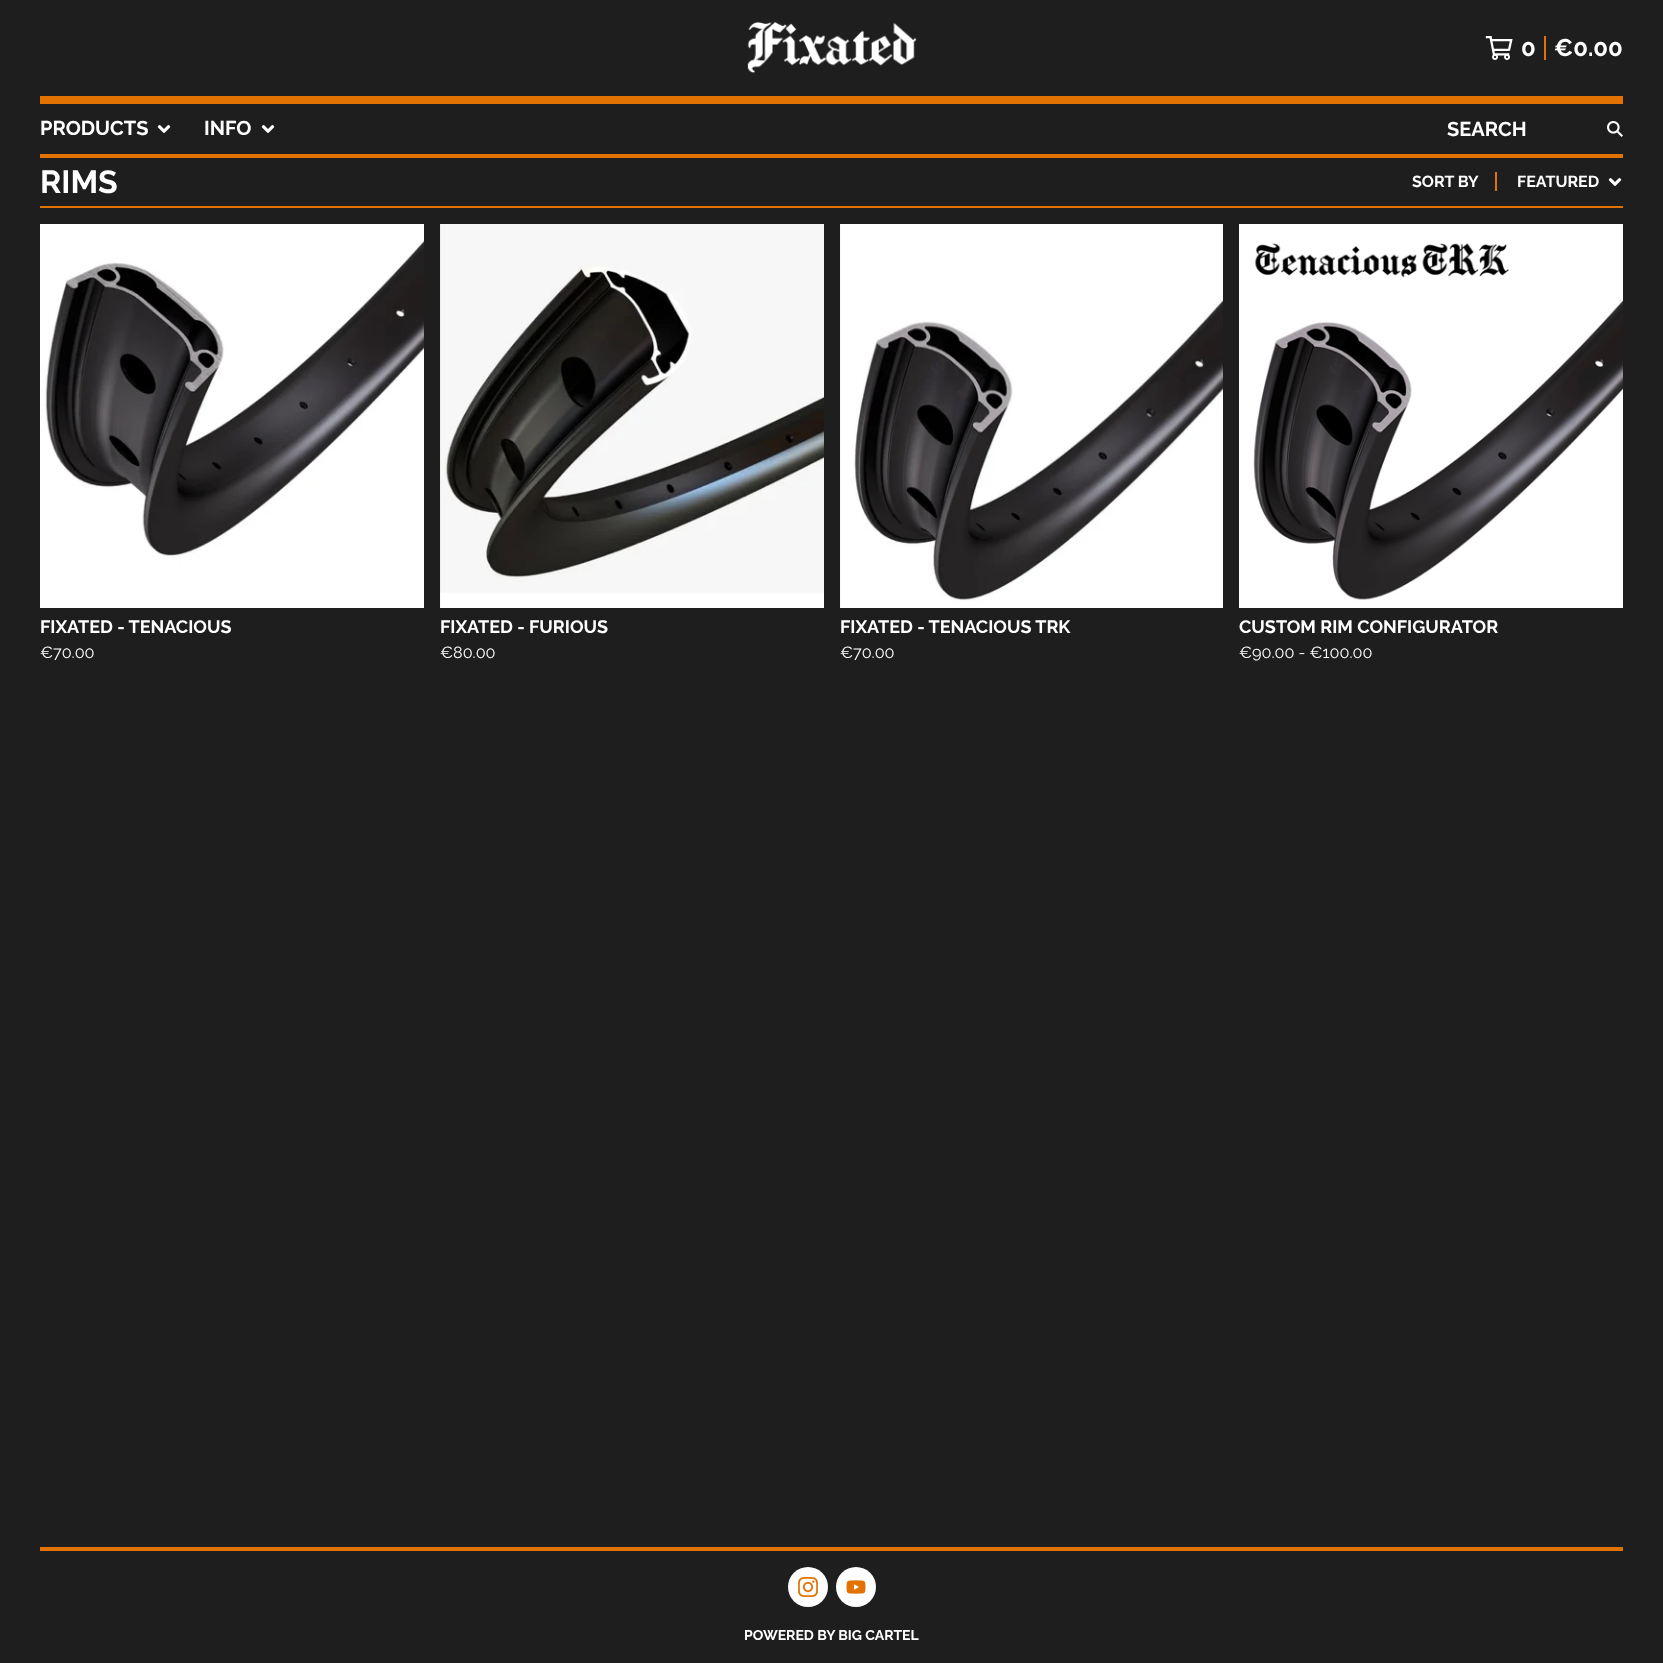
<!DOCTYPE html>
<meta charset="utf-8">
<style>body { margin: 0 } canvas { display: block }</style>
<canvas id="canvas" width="1663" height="1663"></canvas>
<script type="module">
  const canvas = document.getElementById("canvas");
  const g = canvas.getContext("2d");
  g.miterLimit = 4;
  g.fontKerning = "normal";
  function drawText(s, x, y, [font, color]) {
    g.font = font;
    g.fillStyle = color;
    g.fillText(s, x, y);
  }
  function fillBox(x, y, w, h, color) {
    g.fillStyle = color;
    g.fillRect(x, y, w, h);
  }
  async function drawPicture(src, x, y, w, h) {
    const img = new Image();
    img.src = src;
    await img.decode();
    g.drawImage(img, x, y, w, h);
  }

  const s1 = ["bold 24px Raleway", "#FFFFFF"];
  const s2 = ["bold 20px Raleway", "#FFFFFF"];
  const s3 = ["bold 32px Raleway", "#FFFFFF"];
  const s4 = ["bold 16px Raleway", "#FFFFFF"];
  const s5 = ["bold 18px Raleway", "#FFFFFF"];
  const s6 = ["16.25px Raleway", "#FFFFFF"];
  const s7 = ["bold 14px Raleway", "#FFFFFF"];

  fillBox(0, 0, 1663, 1663, "#1E1E1E");
  fillBox(40, 96, 1583, 8, "#E27303");
  await drawPicture("pic1.png", 747, 21, 170, 53);
  await drawPicture("pic2.png", 1485, 36, 28, 24);
  fillBox(1544, 36, 2, 24, "#E27303");
  drawText("0", 1521, 56, s1);
  drawText("€0.00", 1554, 56, s1);
  fillBox(40, 154, 1583, 4, "#E27303");
  drawText("PRODUCTS", 40, 135, s2);
  await drawPicture("pic3.png", 157, 125, 14, 8);
  drawText("INFO", 204, 135, s2);
  await drawPicture("pic3.png", 261, 125, 14, 8);
  drawText("SEARCH", 1447, 136, s2);
  await drawPicture("pic4.png", 1607, 121, 16, 16);
  fillBox(40, 206, 1583, 2, "#E27303");
  drawText("RIMS", 40, 193, s3);
  drawText("SORT BY", 1412, 187, s4);
  fillBox(1495, 172, 2, 19, "#E27303");
  drawText("FEATURED", 1517, 187, s4);
  await drawPicture("pic3.png", 1608, 178, 14, 8);
  await drawPicture("pic5.png", 40, 224, 384, 384);
  drawText("FIXATED - TENACIOUS", 40, 633, s5);
  drawText("€70.00", 40, 658, s6);
  await drawPicture("pic6.png", 440, 224, 384, 384);
  drawText("FIXATED - FURIOUS", 440, 633, s5);
  drawText("€80.00", 440, 658, s6);
  await drawPicture("pic7.png", 840, 224, 383, 384);
  drawText("FIXATED - TENACIOUS TRK", 840, 633, s5);
  drawText("€70.00", 840, 658, s6);
  await drawPicture("pic8.png", 1239, 224, 384, 384);
  drawText("CUSTOM RIM CONFIGURATOR", 1239, 633, s5);
  drawText("€90.00 - €100.00", 1239, 658, s6);
  fillBox(40, 1547, 1583, 4, "#E27303");
  g.fillStyle = "#FFFFFF";
  g.beginPath();
  g.arc(808, 1587, 20, 0, Math.PI * 2);
  g.fill();
  await drawPicture("pic9.png", 798, 1577, 20, 20);
  g.beginPath();
  g.arc(856, 1587, 20, 0, Math.PI * 2);
  g.fill();
  await drawPicture("pic10.png", 846, 1580, 20, 14);
  drawText("POWERED BY BIG CARTEL", 744, 1640, s7);
</script>
